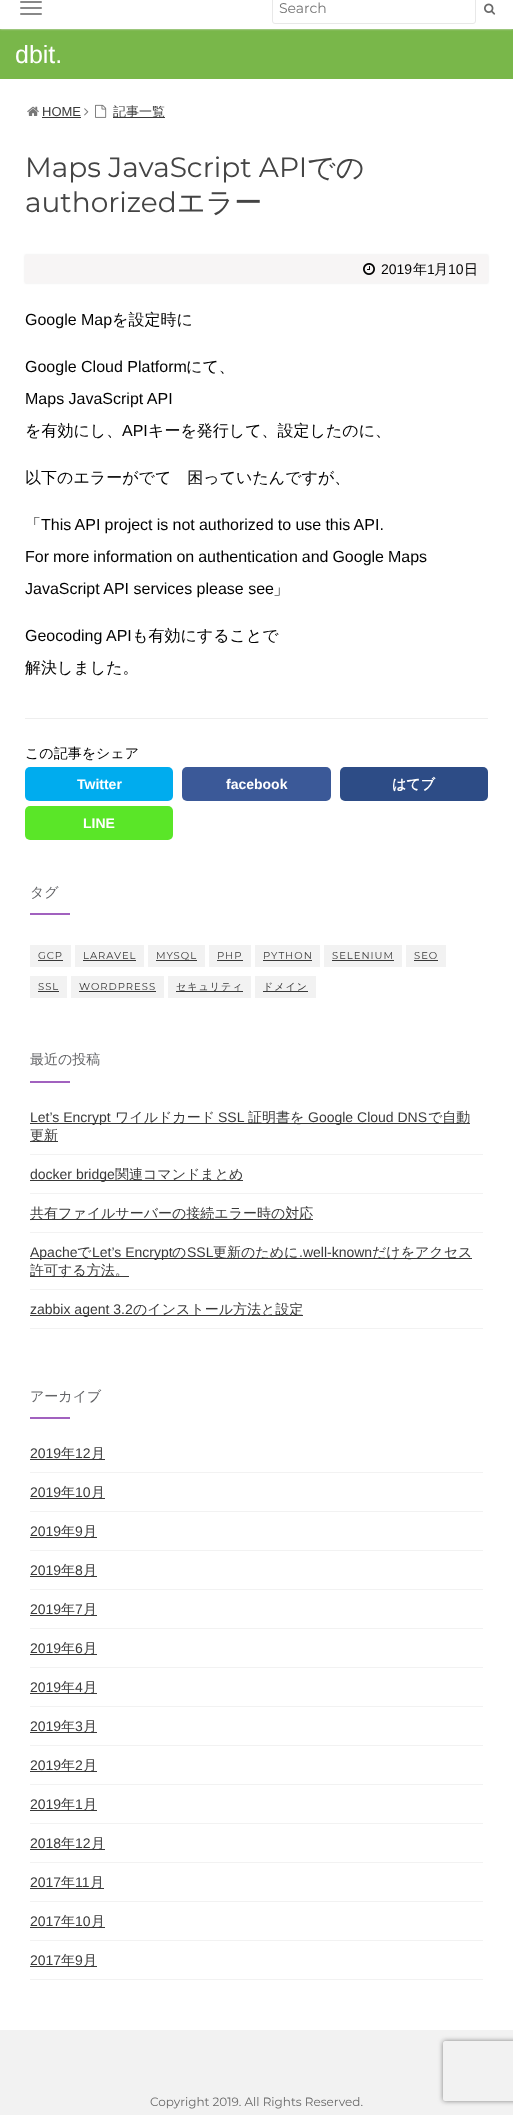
<!DOCTYPE html>
<meta charset="utf-8">
<style>body { margin: 0 } canvas { display: block }</style>
<canvas id="canvas" width="513" height="2115"></canvas>
<script type="module">
  const canvas = document.getElementById("canvas");
  const g = canvas.getContext("2d");
  g.miterLimit = 4;
  g.fontKerning = "normal";
  function drawText(s, x, y, [font, color]) {
    g.font = font;
    g.fillStyle = color;
    g.fillText(s, x, y);
  }
  function fillBox(x, y, w, h, color) {
    g.fillStyle = color;
    g.fillRect(x, y, w, h);
  }
  function fillRounded(x, y, w, h, r, color) {
    g.fillStyle = color;
    g.beginPath();
    g.roundRect(x, y, w, h, r);
    g.fill();
  }
  async function drawPicture(src, x, y, w, h) {
    const img = new Image();
    img.src = src;
    await img.decode();
    g.drawImage(img, x, y, w, h);
  }

  const s1 = ["14px Montserrat", "#757575"];
  const s2 = ["25px Liberation Sans", "#FFFFFF"];
  const s3 = ["13px Liberation Sans", "#393939"];
  const s4 = ["500 13px WenQuanYi Zen Hei", "#393939"];
  const s5 = ["28px Montserrat", "#444444"];
  const s6 = ["500 28px WenQuanYi Zen Hei", "#444444"];
  const s7 = ["14px Liberation Sans", "#000000"];
  const s8 = ["500 14px WenQuanYi Zen Hei", "#000000"];
  const s9 = ["16px Liberation Sans", "#000000"];
  const s10 = ["500 16px WenQuanYi Zen Hei", "#000000"];
  const s11 = ["bold 14px Liberation Sans", "#FFFFFF"];
  const s12 = ["bold 14px WenQuanYi Zen Hei", "#FFFFFF"];
  const s13 = ["500 14px WenQuanYi Zen Hei", "#636467"];
  const s14 = ["10px Montserrat", "#393939"];
  const s15 = ["500 10px WenQuanYi Zen Hei", "#393939"];
  const s16 = ["14px Liberation Sans", "#393939"];
  const s17 = ["500 14px WenQuanYi Zen Hei", "#393939"];
  const s18 = ["12px Montserrat", "#696969"];

  fillBox(0, 0, 513, 2115, "#FFFFFF");
  fillBox(0, 29, 513, 50, "#79B74A");
  g.save();
  g.beginPath();
  g.rect(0, 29, 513, 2);
  g.clip();
  g.fillStyle = "#E3E3E3";
  g.filter = "blur(1px)";
  g.beginPath();
  g.rect(0, -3, 513, 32);
  g.fill();
  g.filter = "none";
  g.restore();
  fillRounded(20, 1, 22, 2, 1, "#888888");
  fillRounded(20, 7, 22, 2, 1, "#888888");
  fillRounded(20, 13, 22, 2, 1, "#888888");
  g.beginPath();
  g.roundRect(272.5, -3.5, 203, 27, 2.5);
  g.strokeStyle = "#E8E8E8";
  g.stroke();
  drawText("Search", 279, 13, s1);
  await drawPicture("pic1.png", 484, 3, 12, 12);
  drawText("dbit.", 15, 63, s2);
  await drawPicture("pic2.png", 27, 106, 12, 10);
  drawText("HOME", 42, 116, s3);
  fillBox(42, 117, 39, 1, "#393939");
  await drawPicture("pic3.png", 84, 108, 5, 8);
  await drawPicture("pic4.png", 95, 104, 12, 14);
  fillBox(113, 117, 52, 1, "#393939");
  drawText("記事一覧", 113, 116, s4);
  drawText("Maps JavaScript API", 25, 177, s5);
  drawText("での", 307, 177, s6);
  drawText("authorized", 25, 212, s5);
  drawText("エラー", 177, 212, s6);
  g.fillStyle = "#E3E3E3";
  g.filter = "blur(1px)";
  g.beginPath();
  g.rect(25, 255, 463, 28);
  g.fill();
  g.filter = "none";
  fillBox(25, 255, 463, 28, "#F7F5F5");
  await drawPicture("pic5.png", 363, 263, 12, 12);
  drawText("2019", 381, 274, s7);
  drawText("年", 413, 274, s8);
  drawText("1", 427, 274, s7);
  drawText("月", 434, 274, s8);
  drawText("10", 448, 274, s7);
  drawText("日", 464, 274, s8);
  drawText("Google Map", 25, 325, s9);
  drawText("を設定時に", 112, 325, s10);
  drawText("Google Cloud Platform", 25, 372, s9);
  drawText("にて、", 186, 372, s10);
  drawText("Maps JavaScript API", 25, 404, s9);
  drawText("を有効にし、", 25, 436, s10);
  drawText("API", 122, 436, s9);
  drawText("キーを発行して、設定したのに、", 148, 436, s10);
  drawText("以下のエラーがでて　困っていたんですが、", 25, 483, s10);
  drawText("「", 25, 530, s10);
  g.wordSpacing = "-0.25px";
  drawText("This API project is not authorized to use this API.", 41, 530, s9);
  g.wordSpacing = "-0.5px";
  drawText("For more information on authentication and Google Maps", 25, 562, s9);
  g.wordSpacing = "0px";
  drawText("JavaScript API services please see", 25, 594, s9);
  drawText("」", 273, 594, s10);
  drawText("Geocoding API", 25, 641, s9);
  drawText("も有効にすることで", 132, 641, s10);
  drawText("解決しました。", 25, 673, s10);
  fillBox(25, 718, 463, 1, "#EEEEEE");
  drawText("この記事をシェア", 25, 758, s8);
  fillRounded(25, 767, 148, 34, 5, "#00ACEE");
  drawText("Twitter", 77, 789, s11);
  fillRounded(182, 767, 149, 34, 5, "#3B5998");
  drawText("facebook", 226, 789, s11);
  fillRounded(340, 767, 148, 34, 5, "#2D4C86");
  drawText("はてブ", 392, 789, s12);
  fillRounded(25, 806, 148, 34, 5, "#5AE628");
  drawText("LINE", 83, 828, s11);
  drawText("タグ", 30, 897, s13);
  fillBox(30, 913, 40, 2, "#A161BF");
  fillBox(30, 945, 41, 22, "#F2F2F2");
  g.letterSpacing = "1px";
  drawText("GCP", 38, 959, s14);
  fillBox(38, 960, 25, 1, "#393939");
  fillBox(75, 945, 69, 22, "#F2F2F2");
  drawText("LARAVEL", 83, 959, s14);
  fillBox(83, 960, 53, 1, "#393939");
  fillBox(148, 945, 57, 22, "#F2F2F2");
  fillBox(156, 960, 41, 1, "#393939");
  drawText("MYSQL", 156, 959, s14);
  fillBox(209, 945, 42, 22, "#F2F2F2");
  drawText("PHP", 217, 959, s14);
  fillBox(217, 960, 26, 1, "#393939");
  fillBox(255, 945, 65, 22, "#F2F2F2");
  drawText("PYTHON", 263, 959, s14);
  fillBox(263, 960, 49, 1, "#393939");
  fillBox(324, 945, 78, 22, "#F2F2F2");
  drawText("SELENIUM", 332, 959, s14);
  fillBox(332, 960, 62, 1, "#393939");
  fillBox(406, 945, 40, 22, "#F2F2F2");
  drawText("SEO", 414, 959, s14);
  fillBox(414, 960, 24, 1, "#393939");
  fillBox(30, 976, 37, 22, "#F2F2F2");
  drawText("SSL", 38, 990, s14);
  fillBox(38, 991, 21, 1, "#393939");
  fillBox(71, 976, 93, 22, "#F2F2F2");
  drawText("WORDPRESS", 79, 990, s14);
  fillBox(79, 991, 77, 1, "#393939");
  fillBox(168, 976, 83, 22, "#F2F2F2");
  fillBox(176, 991, 67, 1, "#393939");
  drawText("セキュリティ", 176, 990, s15);
  fillBox(255, 976, 61, 22, "#F2F2F2");
  fillBox(263, 991, 45, 1, "#393939");
  drawText("ドメイン", 263, 990, s15);
  g.letterSpacing = "0px";
  drawText("最近の投稿", 30, 1064, s13);
  fillBox(30, 1081, 40, 2, "#A161BF");
  fillBox(30, 1154, 453, 1, "#F2F2F2");
  fillBox(30, 1123, 440, 1, "#393939");
  drawText("Let’s Encrypt", 30, 1122, s16);
  drawText("ワイルドカード", 115, 1122, s17);
  drawText("SSL", 218, 1122, s16);
  drawText("証明書を", 248, 1122, s17);
  drawText("Google Cloud DNS", 308, 1122, s16);
  drawText("で自動", 428, 1122, s17);
  fillBox(30, 1141, 28, 1, "#393939");
  drawText("更新", 30, 1140, s17);
  fillBox(30, 1193, 453, 1, "#F2F2F2");
  fillBox(30, 1180, 213, 1, "#393939");
  drawText("docker bridge", 30, 1179, s16);
  drawText("関連コマンドまとめ", 115, 1179, s17);
  fillBox(30, 1232, 453, 1, "#F2F2F2");
  fillBox(30, 1219, 283, 1, "#393939");
  drawText("共有ファイルサーバーの接続エラー時の対応", 30, 1218, s17);
  fillBox(30, 1289, 453, 1, "#F2F2F2");
  fillBox(30, 1258, 442, 1, "#393939");
  drawText("Apache", 30, 1257, s16);
  drawText("で", 77, 1257, s17);
  drawText("Let’s Encrypt", 92, 1257, s16);
  drawText("の", 172, 1257, s17);
  drawText("SSL", 187, 1257, s16);
  drawText("更新のために", 213, 1257, s17);
  drawText(".well-known", 299, 1257, s16);
  drawText("だけをアクセス", 372, 1257, s17);
  fillBox(30, 1276, 99, 1, "#393939");
  drawText("許可する方法。", 30, 1275, s17);
  fillBox(30, 1328, 453, 1, "#F2F2F2");
  fillBox(30, 1315, 273, 1, "#393939");
  drawText("zabbix agent 3.2", 30, 1314, s16);
  drawText("のインストール方法と設定", 133, 1314, s17);
  drawText("アーカイブ", 30, 1401, s13);
  fillBox(30, 1417, 40, 2, "#A161BF");
  fillBox(30, 1472, 453, 1, "#F2F2F2");
  drawText("2019", 30, 1458, s16);
  fillBox(30, 1459, 75, 1, "#393939");
  drawText("年", 61, 1458, s17);
  drawText("12", 75, 1458, s16);
  drawText("月", 91, 1458, s17);
  fillBox(30, 1511, 453, 1, "#F2F2F2");
  drawText("2019", 30, 1497, s16);
  fillBox(30, 1498, 75, 1, "#393939");
  drawText("年", 61, 1497, s17);
  drawText("10", 75, 1497, s16);
  drawText("月", 91, 1497, s17);
  fillBox(30, 1550, 453, 1, "#F2F2F2");
  drawText("2019", 30, 1536, s16);
  fillBox(30, 1537, 67, 1, "#393939");
  drawText("年", 61, 1536, s17);
  drawText("9", 75, 1536, s16);
  drawText("月", 83, 1536, s17);
  fillBox(30, 1589, 453, 1, "#F2F2F2");
  drawText("2019", 30, 1575, s16);
  fillBox(30, 1576, 67, 1, "#393939");
  drawText("年", 61, 1575, s17);
  drawText("8", 75, 1575, s16);
  drawText("月", 83, 1575, s17);
  fillBox(30, 1628, 453, 1, "#F2F2F2");
  drawText("2019", 30, 1614, s16);
  fillBox(30, 1615, 67, 1, "#393939");
  drawText("年", 61, 1614, s17);
  drawText("7", 75, 1614, s16);
  drawText("月", 83, 1614, s17);
  fillBox(30, 1667, 453, 1, "#F2F2F2");
  drawText("2019", 30, 1653, s16);
  fillBox(30, 1654, 67, 1, "#393939");
  drawText("年", 61, 1653, s17);
  drawText("6", 75, 1653, s16);
  drawText("月", 83, 1653, s17);
  fillBox(30, 1706, 453, 1, "#F2F2F2");
  drawText("2019", 30, 1692, s16);
  fillBox(30, 1693, 67, 1, "#393939");
  drawText("年", 61, 1692, s17);
  drawText("4", 75, 1692, s16);
  drawText("月", 83, 1692, s17);
  fillBox(30, 1745, 453, 1, "#F2F2F2");
  drawText("2019", 30, 1731, s16);
  fillBox(30, 1732, 67, 1, "#393939");
  drawText("年", 61, 1731, s17);
  drawText("3", 75, 1731, s16);
  drawText("月", 83, 1731, s17);
  fillBox(30, 1784, 453, 1, "#F2F2F2");
  drawText("2019", 30, 1770, s16);
  fillBox(30, 1771, 67, 1, "#393939");
  drawText("年", 61, 1770, s17);
  drawText("2", 75, 1770, s16);
  drawText("月", 83, 1770, s17);
  fillBox(30, 1823, 453, 1, "#F2F2F2");
  drawText("2019", 30, 1809, s16);
  fillBox(30, 1810, 67, 1, "#393939");
  drawText("年", 61, 1809, s17);
  drawText("1", 75, 1809, s16);
  drawText("月", 83, 1809, s17);
  fillBox(30, 1862, 453, 1, "#F2F2F2");
  drawText("2018", 30, 1848, s16);
  fillBox(30, 1849, 75, 1, "#393939");
  drawText("年", 61, 1848, s17);
  drawText("12", 75, 1848, s16);
  drawText("月", 91, 1848, s17);
  fillBox(30, 1901, 453, 1, "#F2F2F2");
  drawText("2017", 30, 1887, s16);
  fillBox(30, 1888, 74, 1, "#393939");
  drawText("年", 61, 1887, s17);
  drawText("11", 75, 1887, s16);
  drawText("月", 90, 1887, s17);
  fillBox(30, 1940, 453, 1, "#F2F2F2");
  drawText("2017", 30, 1926, s16);
  fillBox(30, 1927, 75, 1, "#393939");
  drawText("年", 61, 1926, s17);
  drawText("10", 75, 1926, s16);
  drawText("月", 91, 1926, s17);
  fillBox(30, 1979, 453, 1, "#F2F2F2");
  drawText("2017", 30, 1965, s16);
  fillBox(30, 1966, 67, 1, "#393939");
  drawText("年", 61, 1965, s17);
  drawText("9", 75, 1965, s16);
  drawText("月", 83, 1965, s17);
  fillBox(0, 2030, 513, 85, "#F2F2F2");
  drawText("Copyright 2019. All Rights Reserved.", 150, 2106, s18);
  g.save();
  g.beginPath();
  g.moveTo(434, 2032);
  g.lineTo(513, 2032);
  g.lineTo(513, 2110);
  g.lineTo(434, 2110);
  g.closePath();
  g.moveTo(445, 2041);
  g.lineTo(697, 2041);
  g.bezierCurveTo(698, 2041, 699, 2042, 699, 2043);
  g.lineTo(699, 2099);
  g.bezierCurveTo(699, 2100, 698, 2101, 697, 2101);
  g.lineTo(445, 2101);
  g.bezierCurveTo(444, 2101, 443, 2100, 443, 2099);
  g.lineTo(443, 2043);
  g.bezierCurveTo(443, 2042, 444, 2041, 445, 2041);
  g.closePath();
  g.clip("evenodd");
  g.fillStyle = "#808080";
  g.filter = "blur(2.5px)";
  g.beginPath();
  g.roundRect(443, 2041, 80, 60, 2);
  g.fill();
  g.filter = "none";
  g.restore();
</script>
